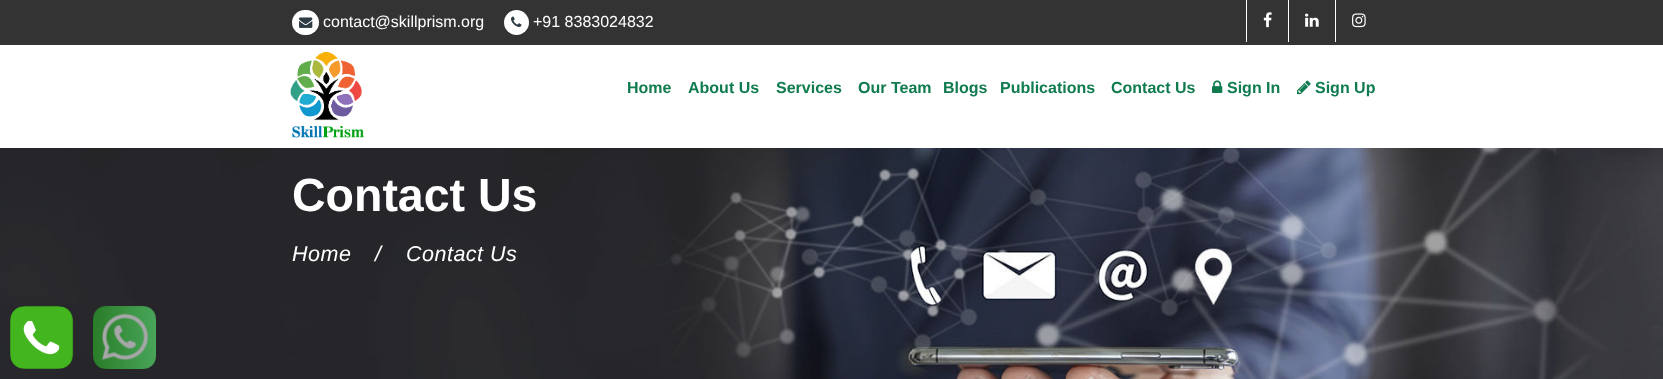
<!DOCTYPE html>
<meta charset="utf-8">
<style>body { margin: 0 } canvas { display: block }</style>
<canvas id="canvas" width="1663" height="379"></canvas>
<script type="module">
  const canvas = document.getElementById("canvas");
  const g = canvas.getContext("2d");
  g.miterLimit = 4;
  g.fontKerning = "normal";
  function drawText(s, x, y, [font, color]) {
    g.font = font;
    g.fillStyle = color;
    g.fillText(s, x, y);
  }
  function fillBox(x, y, w, h, color) {
    g.fillStyle = color;
    g.fillRect(x, y, w, h);
  }
  function fillRounded(x, y, w, h, r, color) {
    g.fillStyle = color;
    g.beginPath();
    g.roundRect(x, y, w, h, r);
    g.fill();
  }
  async function drawPicture(src, x, y, w, h) {
    const img = new Image();
    img.src = src;
    await img.decode();
    g.drawImage(img, x, y, w, h);
  }

  const s1 = ["16px Liberation Sans", "#FFFFFF"];
  const s2 = ["bold 16px Liberation Sans", "#0F7B4E"];
  const s3 = ["bold 46.5px Liberation Sans", "#FFFFFF"];
  const s4 = ["italic 21.5px Liberation Sans", "#FFFFFF"];

  fillBox(0, 0, 1663, 379, "#FFFFFF");
  fillBox(0, 0, 1663, 45, "#333333");
  fillRounded(292, 10, 27, 25, 12.5, "#FFFFFF");
  await drawPicture("pic1.png", 299, 17, 14, 11);
  drawText("contact@skillprism.org", 323, 27, s1);
  g.beginPath();
  g.arc(516.5, 22.5, 12.5, 0, Math.PI * 2);
  g.fill();
  await drawPicture("pic2.png", 511, 16, 11, 11);
  drawText("+91 8383024832", 533, 27, s1);
  fillBox(1246, 0, 1, 42, "#FFFFFF");
  await drawPicture("pic3.png", 1263, 12, 9, 16);
  fillBox(1288, 0, 1, 42, "#FFFFFF");
  await drawPicture("pic4.png", 1305, 13, 14, 14);
  fillBox(1335, 0, 1, 42, "#FFFFFF");
  await drawPicture("pic5.png", 1352, 13, 14, 15);
  await drawPicture("pic6.png", 290, 51, 74, 87);
  drawText("Home", 627, 93, s2);
  drawText("About Us", 688, 93, s2);
  drawText("Services", 776, 93, s2);
  drawText("Our Team", 858, 93, s2);
  drawText("Blogs", 943, 93, s2);
  drawText("Publications", 1000, 93, s2);
  drawText("Contact Us", 1111, 93, s2);
  await drawPicture("pic7.png", 1212, 80, 11, 13);
  drawText("Sign In", 1227, 93, s2);
  await drawPicture("pic8.png", 1297, 80, 14, 15);
  drawText("Sign Up", 1315, 93, s2);
  await drawPicture("pic9.png", 0, 148, 1663, 231);
  drawText("Contact Us", 292, 211, s3);
  g.letterSpacing = "0.5px";
  drawText("Home", 292, 261, s4);
  drawText("/", 375, 261, s4);
  drawText("Contact Us", 406, 261, s4);
  await drawPicture("pic10.png", 10, 305, 64, 64);
  await drawPicture("pic11.png", 93, 306, 63, 63);
</script>
